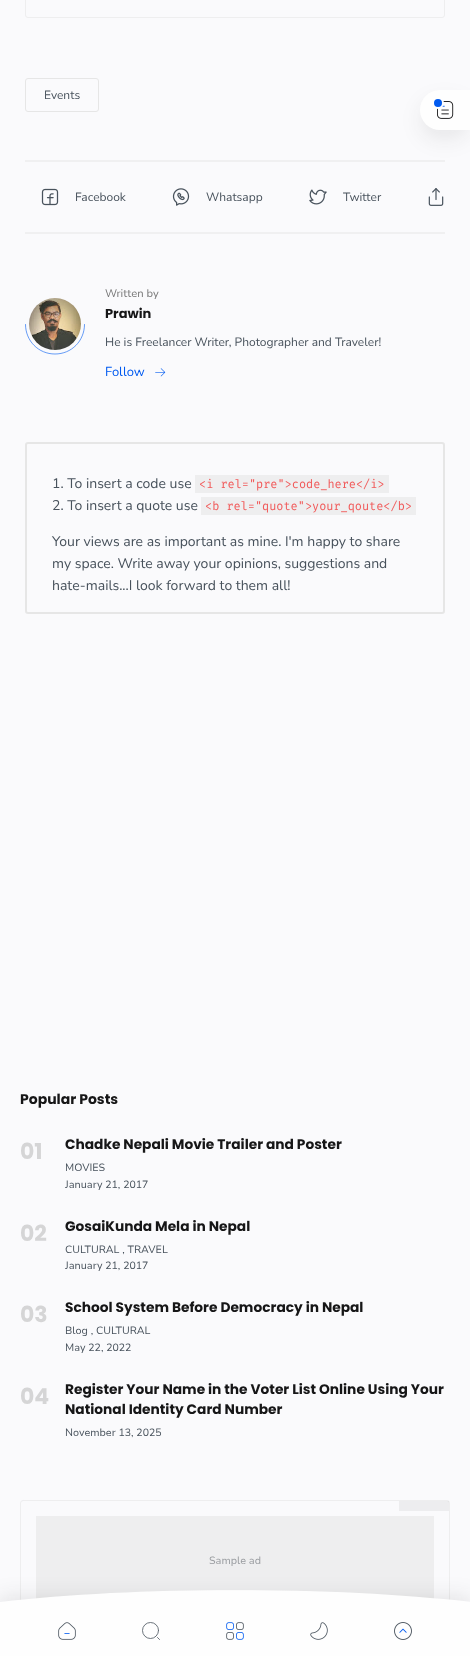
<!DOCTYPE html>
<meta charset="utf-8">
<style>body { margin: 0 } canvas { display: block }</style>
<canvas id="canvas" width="470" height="1656"></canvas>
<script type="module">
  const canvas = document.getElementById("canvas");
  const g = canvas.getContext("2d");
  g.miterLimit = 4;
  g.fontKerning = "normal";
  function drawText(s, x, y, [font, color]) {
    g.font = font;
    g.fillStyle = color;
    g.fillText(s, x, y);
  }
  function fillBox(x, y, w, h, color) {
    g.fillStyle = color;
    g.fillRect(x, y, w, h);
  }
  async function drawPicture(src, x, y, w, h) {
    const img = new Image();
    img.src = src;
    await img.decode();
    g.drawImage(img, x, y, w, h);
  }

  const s1 = ["12px Nunito Sans", "#48525C"];
  const s2 = ["11px 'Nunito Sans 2'", "#767676"];
  const s3 = ["bold 13px Poppins", "#161617"];
  const s4 = ["13px Nunito Sans", "#005AF0"];
  const s5 = ["14px Nunito Sans", "#48525C"];
  const s6 = ["11.9px Fira Mono", "#F15A5A"];
  const s7 = ["bold 14px Poppins", "#161617"];
  const s8 = ["bold 22px Poppins", "#D5D5D6"];
  const s9 = ["bold 13.75px Poppins", "#161617"];
  const s10 = ["10.5px 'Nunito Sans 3'", "#48525C"];
  const s11 = ["10.5px 'Nunito Sans 3'", "#989B9F"];

  fillBox(0, 0, 470, 1656, "#FAFAFC");
  g.beginPath();
  g.roundRect(25.5, -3.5, 419, 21, 2.5);
  g.strokeStyle = "#EEEEEF";
  g.stroke();
  g.beginPath();
  g.roundRect(25.5, 78.5, 73, 33, 2.5);
  g.strokeStyle = "#E6E6E6";
  g.stroke();
  drawText("Events", 44, 99, s1);
  fillBox(25, 160, 420, 2, "#F0F0F1");
  fillBox(25, 232, 420, 2, "#F0F0F1");
  await drawPicture("pic1.png", 41, 188, 18, 18);
  drawText("Facebook", 75, 201, s1);
  await drawPicture("pic2.png", 172, 188, 18, 18);
  drawText("Whatsapp", 206, 201, s1);
  await drawPicture("pic3.png", 309, 189, 18, 16);
  drawText("Twitter", 343, 201, s1);
  await drawPicture("pic4.png", 428, 188, 16, 18);
  await drawPicture("pic5.png", 29, 298, 52, 52);
  g.beginPath();
  g.moveTo(84.5, 324.5);
  g.bezierCurveTo(84.5, 341, 71.5, 354, 55, 354);
  g.bezierCurveTo(38.5, 354, 25.5, 341, 25.5, 324.5);
  g.strokeStyle = "#005AF0";
  g.lineWidth = 0.6;
  g.lineCap = "round";
  g.lineJoin = "round";
  g.stroke();
  drawText("Written by", 105, 297, s2);
  drawText("Prawin", 105, 318, s3);
  drawText("He is Freelancer Writer, Photographer and Traveler!", 105, 346, s1);
  drawText("Follow", 105, 376, s4);
  await drawPicture("pic6.png", 155, 368, 11, 9);
  g.fillStyle = "rgba(30, 30, 30, 0.08)";
  g.filter = "blur(10px)";
  g.beginPath();
  g.roundRect(420, 100, 50, 40, 20);
  g.fill();
  g.filter = "none";
  g.fillStyle = "#FEFEFE";
  g.beginPath();
  g.roundRect(420, 90, 50, 40, [20, 0, 0, 20]);
  g.fill();
  await drawPicture("pic7.png", 437, 101, 17, 18);
  g.fillStyle = "#005AF0";
  g.beginPath();
  g.arc(438, 103, 5, 0, Math.PI * 2);
  g.fill();
  g.strokeStyle = "#FEFEFE";
  g.lineWidth = 2;
  g.stroke();
  g.beginPath();
  g.roundRect(26, 443, 418, 170, 2);
  g.strokeStyle = "#E6E6E6";
  g.lineJoin = "miter";
  g.stroke();
  drawText("1. To insert a code use", 52, 488, s5);
  fillBox(195, 475, 194, 18, "#EEEEEF");
  drawText("<i rel=\"pre\">code_here<\/i>", 199, 488, s6);
  drawText("2. To insert a quote use", 52, 510, s5);
  fillBox(201, 497, 215, 18, "#EEEEEF");
  drawText("<b rel=\"quote\">your_qoute<\/b>", 205, 510, s6);
  drawText("Your views are as important as mine. I'm happy to share", 52, 546, s5);
  drawText("my space. Write away your opinions, suggestions and", 52, 568, s5);
  drawText("hate-mails...I look forward to them all!", 52, 590, s5);
  drawText("Popular Posts", 20, 1104, s7);
  drawText("01", 20, 1159, s8);
  drawText("Chadke Nepali Movie Trailer and Poster", 65, 1149, s9);
  drawText("MOVIES", 65, 1171, s10);
  drawText("January 21, 2017", 65, 1188, s10);
  drawText("02", 20, 1241, s8);
  drawText("GosaiKunda Mela in Nepal", 65, 1231, s9);
  drawText("CULTURAL , TRAVEL", 65, 1253, s10);
  drawText("January 21, 2017", 65, 1269, s10);
  drawText("03", 20, 1322, s8);
  drawText("School System Before Democracy in Nepal", 65, 1312, s9);
  drawText("Blog , CULTURAL", 65, 1334, s10);
  drawText("May 22, 2022", 65, 1351, s10);
  drawText("04", 20, 1404, s8);
  drawText("Register Your Name in the Voter List Online Using Your", 65, 1394, s9);
  drawText("National Identity Card Number", 65, 1414, s9);
  drawText("November 13, 2025", 65, 1436, s10);
  g.beginPath();
  g.roundRect(20.5, 1500.5, 429, 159, 2.5);
  g.strokeStyle = "#EEEEEF";
  g.lineWidth = 1;
  g.stroke();
  fillBox(399, 1501, 50, 10, "rgba(0, 0, 0, 0.05)");
  fillBox(36, 1516, 398, 83, "#EEEEEF");
  drawText("Sample ad", 209, 1564, s11);
  g.fillStyle = "rgba(30, 30, 30, 0.1)";
  g.filter = "blur(10px)";
  g.beginPath();
  g.rect(0, 1596, 470, 50);
  g.fill();
  g.filter = "none";
  fillBox(0, 1606, 470, 50, "#FEFEFE");
  await drawPicture("pic8.png", 0, 1590, 470, 16);
  await drawPicture("pic9.png", 58, 1622, 18, 18);
  g.beginPath();
  g.arc(150.5, 1630.5, 8, 0, Math.PI * 2);
  g.strokeStyle = "#48525C";
  g.lineWidth = 0.8;
  g.stroke();
  g.beginPath();
  g.moveTo(159.5, 1639.5);
  g.lineTo(157.5, 1637.5);
  g.lineJoin = "round";
  g.stroke();
  await drawPicture("pic10.png", 226, 1622, 18, 18);
  await drawPicture("pic11.png", 310, 1622, 18, 18);
  await drawPicture("pic12.png", 394, 1622, 18, 18);
</script>
